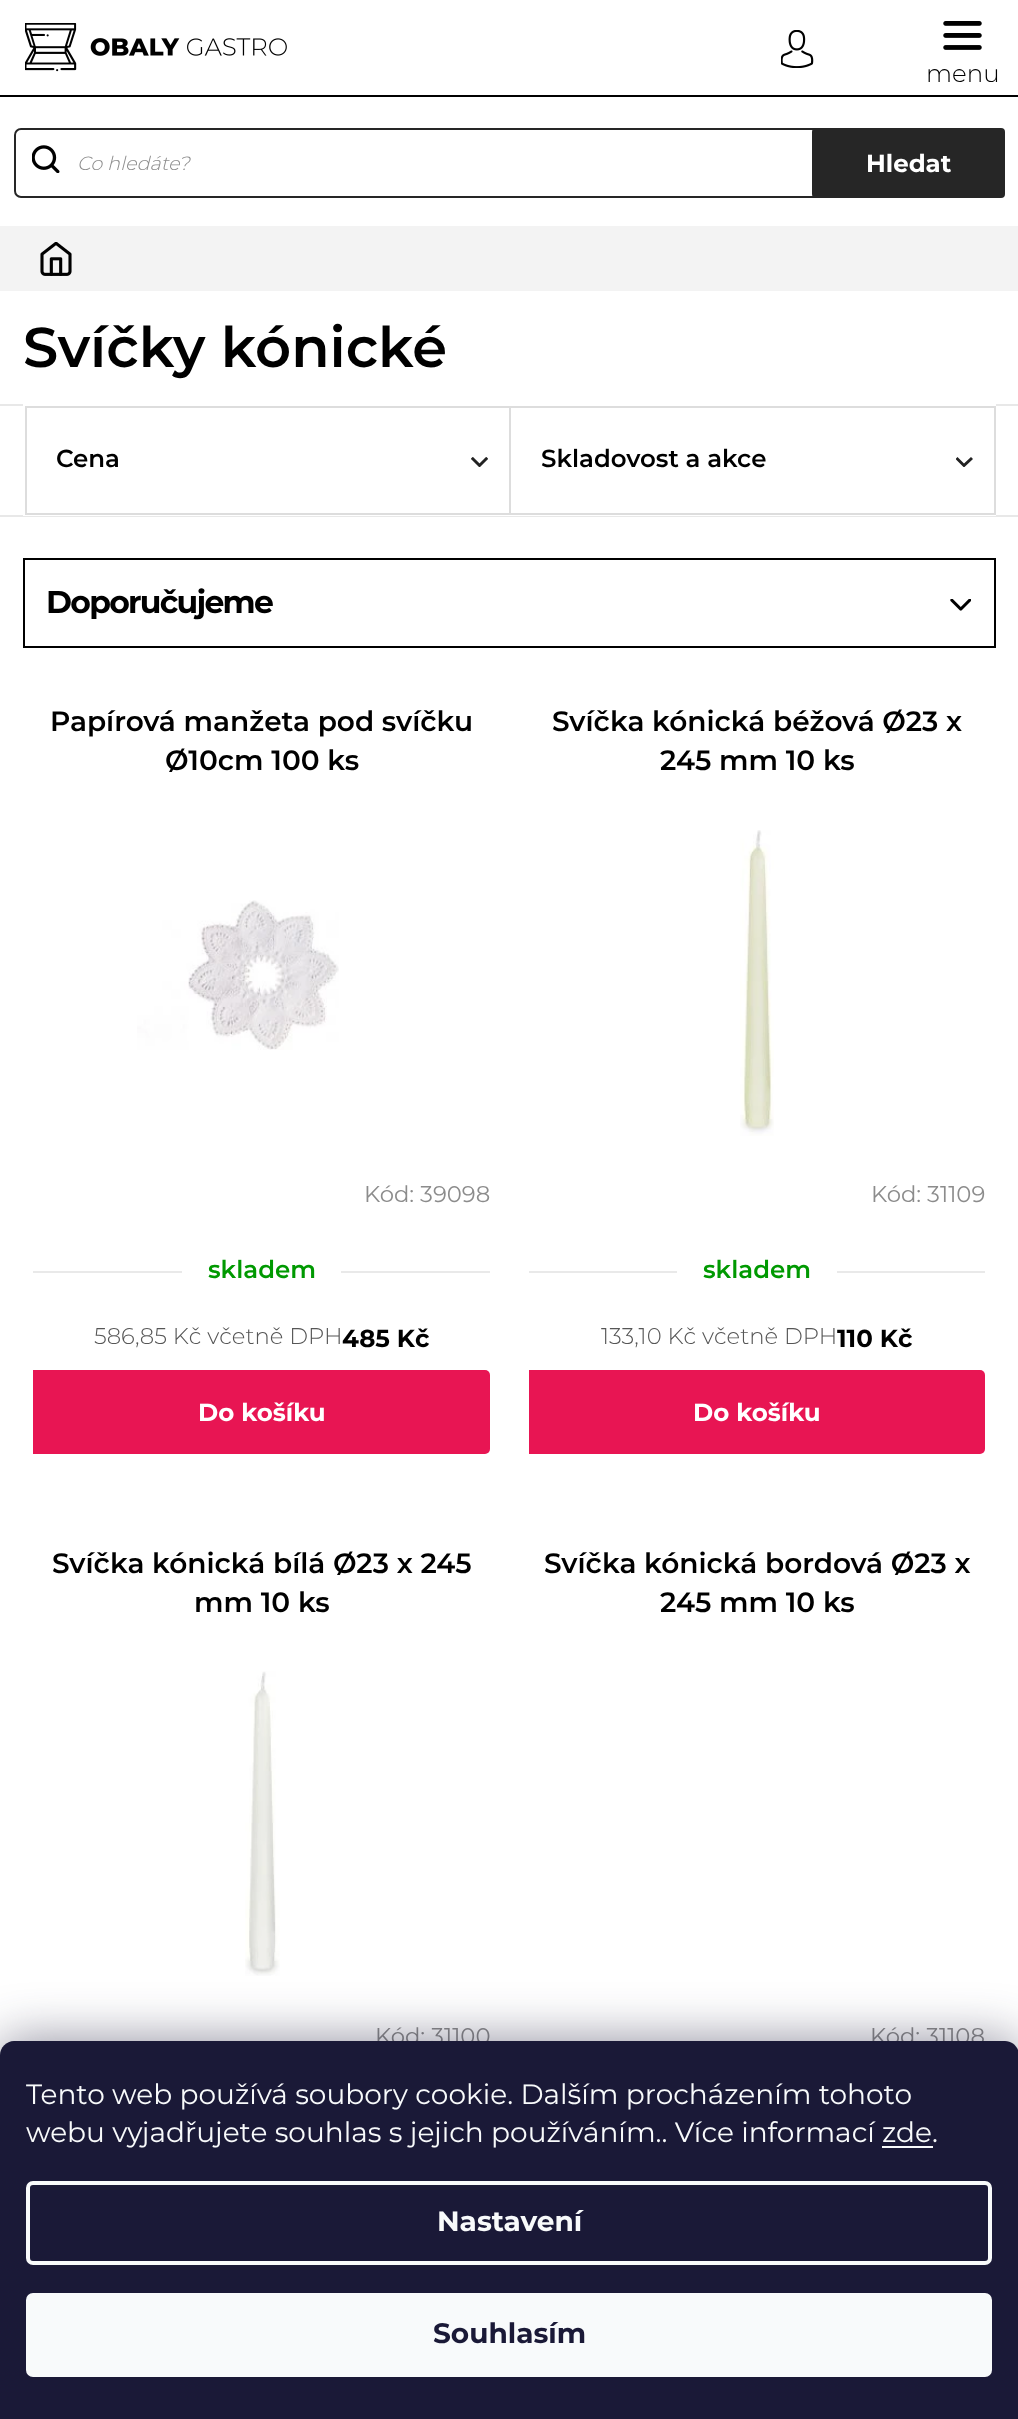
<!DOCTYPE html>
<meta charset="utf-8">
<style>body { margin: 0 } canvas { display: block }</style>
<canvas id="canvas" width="1018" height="2419"></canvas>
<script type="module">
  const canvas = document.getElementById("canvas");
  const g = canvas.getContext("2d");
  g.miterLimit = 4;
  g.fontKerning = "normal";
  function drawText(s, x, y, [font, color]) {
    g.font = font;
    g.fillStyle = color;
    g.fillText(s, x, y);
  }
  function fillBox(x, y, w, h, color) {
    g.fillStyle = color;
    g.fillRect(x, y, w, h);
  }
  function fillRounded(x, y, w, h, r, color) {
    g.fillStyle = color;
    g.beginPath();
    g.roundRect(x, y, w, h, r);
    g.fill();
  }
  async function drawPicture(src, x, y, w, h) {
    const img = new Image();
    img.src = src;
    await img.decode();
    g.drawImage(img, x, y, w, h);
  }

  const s1 = ["300 24.5px Montserrat", "#000000"];
  const s2 = ["italic 300 19.25px Montserrat", "#8C8C8C"];
  const s3 = ["bold 24.5px Montserrat", "#FFFFFF"];
  const s4 = ["600 56px Montserrat", "#000000"];
  const s5 = ["600 24.5px Montserrat", "#000000"];
  const s6 = ["bold 31.5px Montserrat", "#000000"];
  const s7 = ["600 28px Montserrat", "#000000"];
  const s8 = ["22.75px Montserrat", "#8C8C8C"];
  const s9 = ["600 24.5px Montserrat", "#009901"];
  const s10 = ["300 22.75px Montserrat", "#565656"];
  const s11 = ["bold 24.5px Montserrat", "#000000"];
  const s12 = ["28px Montserrat", "#F8FAFB"];
  const s13 = ["bold 28px Montserrat", "#F8FAFB"];
  const s14 = ["bold 28px Montserrat", "#1A1937"];

  fillBox(0, 0, 1018, 2419, "#FFFFFF");
  await drawPicture("pic1.png", 781, 30, 33, 38);
  await drawPicture("pic2.png", 943, 21, 39, 29);
  drawText("menu", 926, 82, s1);
  fillBox(0, 95, 1018, 2, "#000000");
  await drawPicture("pic3.png", 25, 23, 262, 49);
  g.beginPath();
  g.roundRect(15, 129, 989, 68, 6);
  g.strokeStyle = "#262626";
  g.lineWidth = 2;
  g.stroke();
  await drawPicture("pic4.png", 32, 145, 28, 28);
  drawText("Co hledáte?", 77, 170, s2);
  fillRounded(812, 128, 193, 70, 4, "#262626");
  drawText("Hledat", 866, 172, s3);
  fillBox(0, 226, 1018, 65, "#F3F3F3");
  await drawPicture("pic5.png", 40, 242, 32, 34);
  drawText("Svíčky kónické", 23, 367, s4);
  fillBox(0, 404, 1018, 2, "#E8E8E8");
  fillBox(0, 515, 1018, 2, "#E8E8E8");
  fillBox(23, 404, 973, 112, "#FFFFFF");
  fillBox(25, 406, 971, 2, "#DDDDDD");
  fillBox(25, 406, 2, 109, "#DDDDDD");
  fillBox(509, 408, 2, 107, "#DDDDDD");
  fillBox(26, 513, 485, 2, "#DDDDDD");
  drawText("Cena", 56, 467, s5);
  await drawPicture("pic6.png", 471, 457, 17, 10);
  fillBox(994, 408, 2, 107, "#DDDDDD");
  fillBox(511, 513, 485, 2, "#DDDDDD");
  drawText("Skladovost a akce", 541, 467, s5);
  g.save();
  g.beginPath();
  g.rect(956, 457, 17, 10);
  g.clip();
  g.fillStyle = "#222222";
  g.beginPath();
  g.moveTo(957.5, 457);
  g.lineTo(964, 463.5);
  g.lineTo(971, 457);
  g.lineTo(973, 459);
  g.lineTo(964, 467.5);
  g.lineTo(955.5, 459);
  g.closePath();
  g.fill();
  g.restore();
  g.strokeStyle = "#000000";
  g.strokeRect(24, 559, 971, 88);
  g.letterSpacing = "-1.75px";
  drawText("Doporučujeme", 46, 613, s6);
  await drawPicture("pic7.png", 950, 599, 21, 12);
  g.letterSpacing = "0px";
  drawText("Papírová manžeta pod svíčku", 50, 731, s7);
  drawText("Ø10cm 100 ks", 165, 770, s7);
  await drawPicture("pic8.png", 137, 900, 202, 150);
  drawText("Kód: 39098", 364, 1202, s8);
  fillBox(33, 1271, 457, 2, "#E9E9E9");
  fillBox(182, 1271, 159, 2, "#FFFFFF");
  drawText("skladem", 208, 1278, s9);
  drawText("586,85 Kč včetně DPH", 94, 1344, s10);
  drawText("485 Kč", 342, 1347, s11);
  g.fillStyle = "#E81553";
  g.beginPath();
  g.roundRect(33, 1370, 457, 84, [0, 5, 5, 0]);
  g.fill();
  drawText("Do košíku", 198, 1421, s3);
  drawText("Svíčka kónická béžová Ø23 x", 552, 731, s7);
  drawText("245 mm 10 ks", 660, 770, s7);
  await drawPicture("pic9.png", 740, 830, 34, 306);
  drawText("Kód: 31109", 871, 1202, s8);
  fillBox(529, 1271, 456, 2, "#E9E9E9");
  fillBox(677, 1271, 160, 2, "#FFFFFF");
  drawText("skladem", 703, 1278, s9);
  drawText("133,10 Kč včetně DPH", 601, 1344, s10);
  drawText("110 Kč", 837, 1347, s11);
  g.fillStyle = "#E81553";
  g.beginPath();
  g.roundRect(529, 1370, 456, 84, [0, 5, 5, 0]);
  g.fill();
  drawText("Do košíku", 693, 1421, s3);
  drawText("Svíčka kónická bílá Ø23 x 245", 52, 1573, s7);
  drawText("mm 10 ks", 194, 1612, s7);
  await drawPicture("pic10.png", 245, 1671, 35, 305);
  drawText("Kód: 31100", 375, 2044, s8);
  drawText("Svíčka kónická bordová Ø23 x", 544, 1573, s7);
  drawText("245 mm 10 ks", 660, 1612, s7);
  drawText("Kód: 31108", 870, 2044, s8);
  g.fillStyle = "rgba(27, 25, 57, 0.5)";
  g.filter = "blur(26px)";
  g.beginPath();
  g.roundRect(0, 2041, 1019, 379, 14);
  g.fill();
  g.filter = "none";
  g.fillStyle = "#1A1937";
  g.beginPath();
  g.moveTo(14, 2041);
  g.lineTo(1005, 2041);
  g.bezierCurveTo(1012.5, 2041, 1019, 2047.5, 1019, 2055);
  g.lineTo(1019, 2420);
  g.lineTo(0, 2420);
  g.lineTo(0, 2055);
  g.bezierCurveTo(0, 2047.5, 6.5, 2041, 14, 2041);
  g.closePath();
  g.fill();
  drawText("Tento web používá soubory cookie. Dalším procházením tohoto", 26, 2104, s12);
  drawText("webu vyjadřujete souhlas s jejich používáním.. Více informací zde.", 26, 2142, s12);
  fillBox(882, 2146, 51, 2, "#F8FAFB");
  g.beginPath();
  g.roundRect(28, 2183, 962, 80, 5);
  g.strokeStyle = "#F8FAFB";
  g.lineWidth = 4;
  g.stroke();
  drawText("Nastavení", 437, 2231, s13);
  fillRounded(26, 2293, 966, 84, 7, "#F8FAFB");
  drawText("Souhlasím", 433, 2343, s14);
</script>
